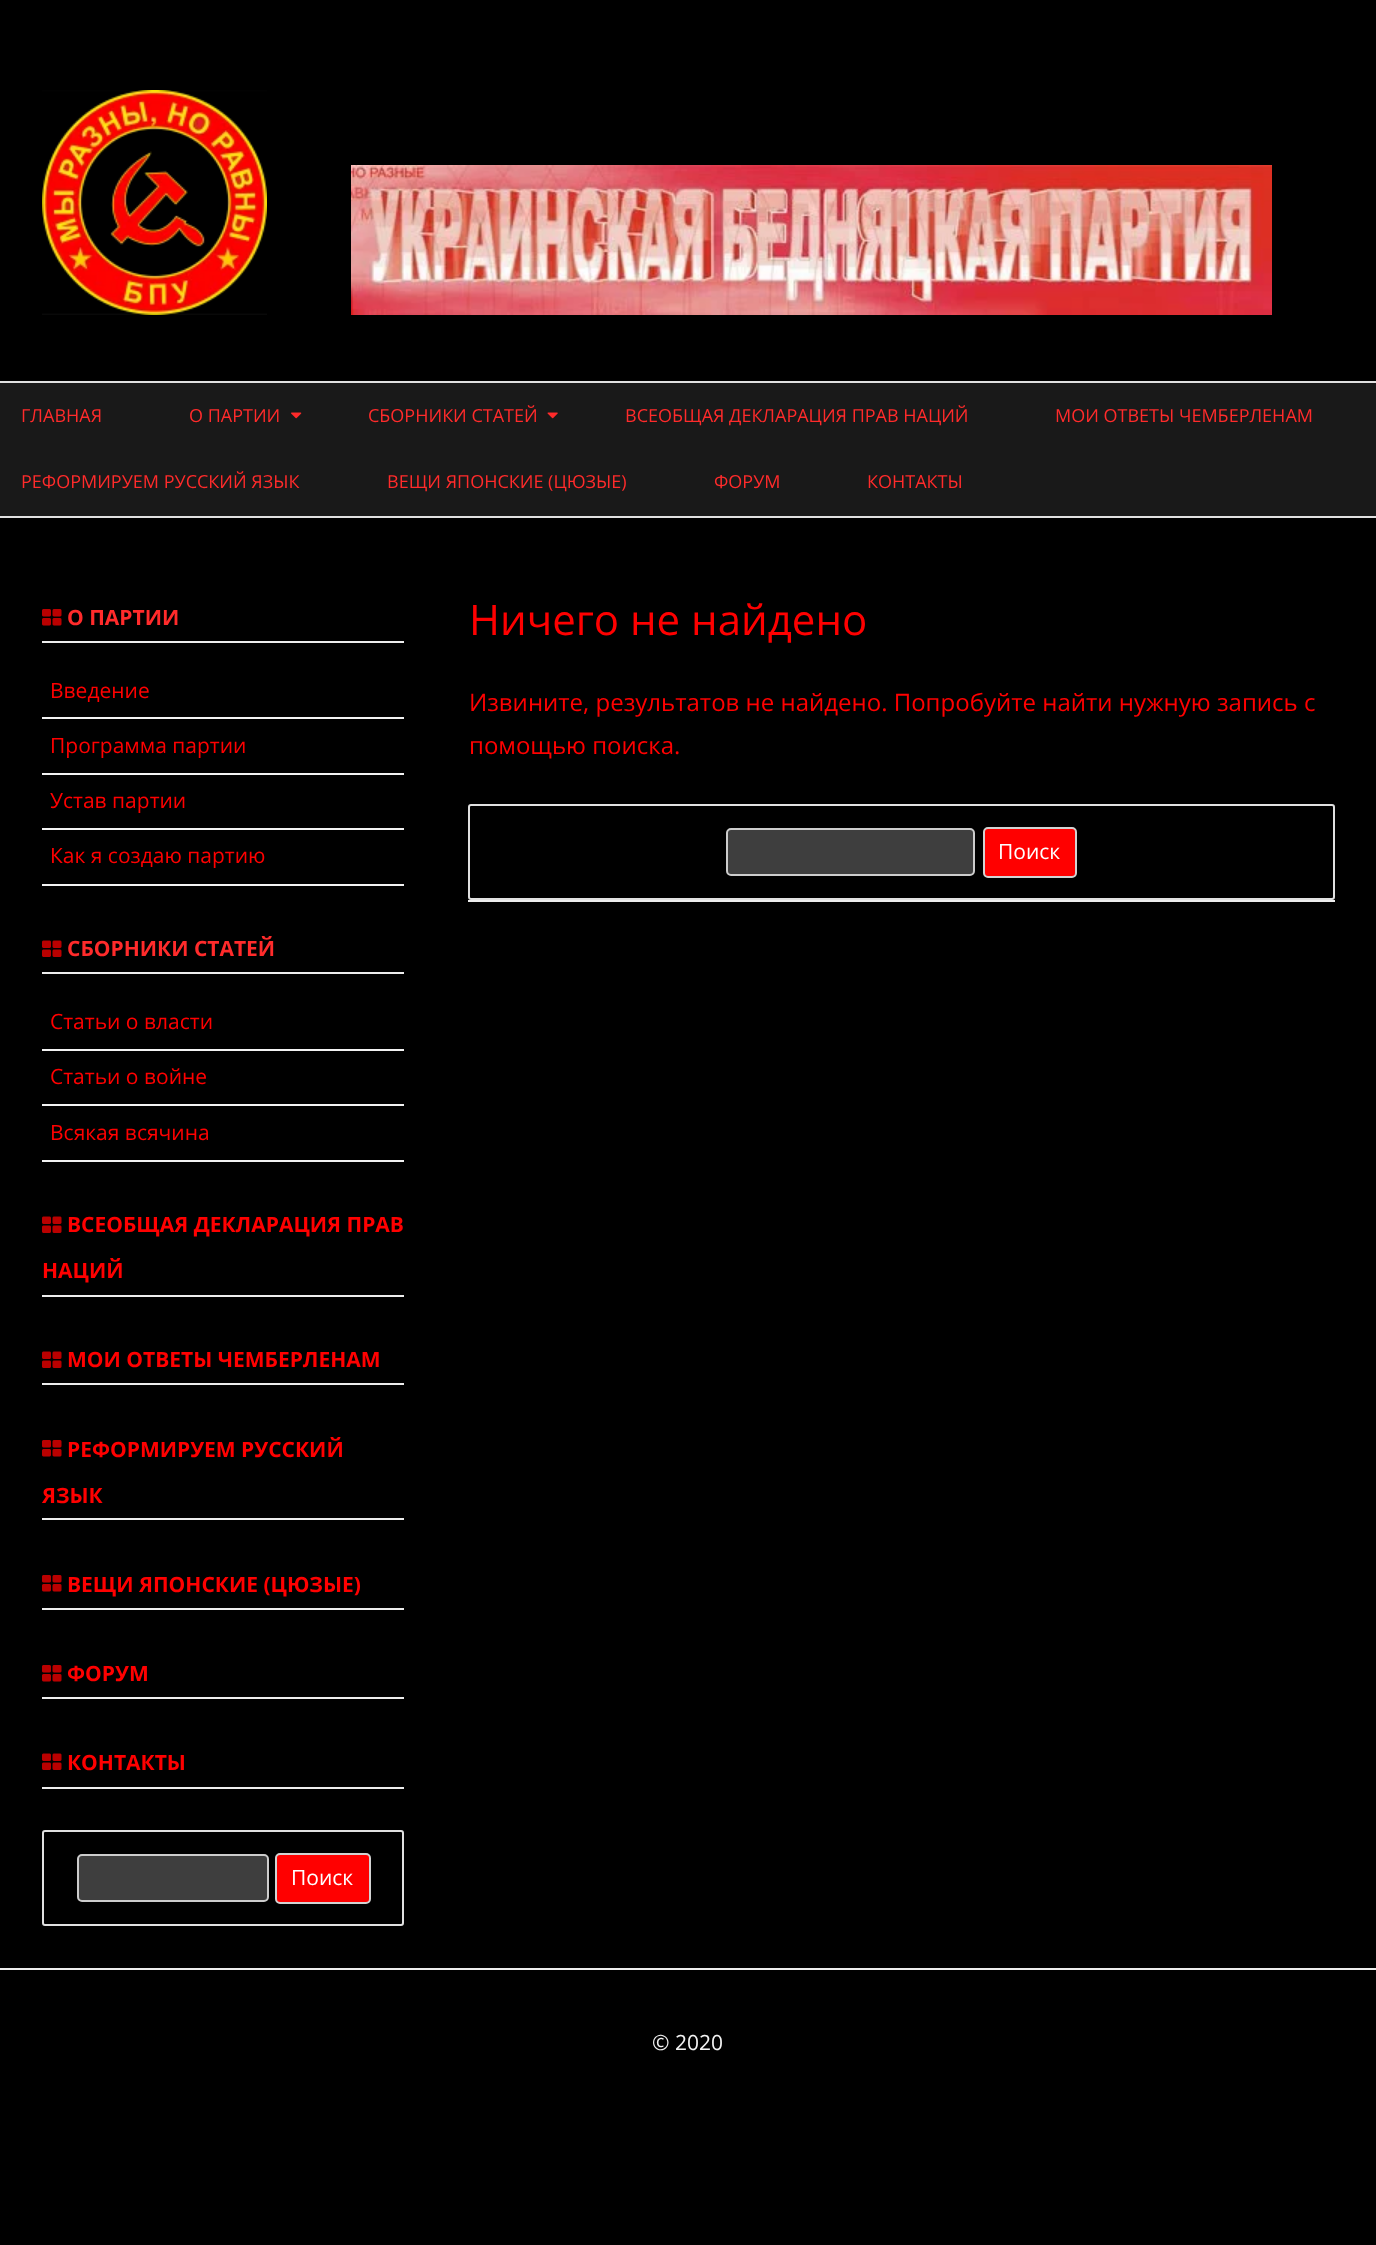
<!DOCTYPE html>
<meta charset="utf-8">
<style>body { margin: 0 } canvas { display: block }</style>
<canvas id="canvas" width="1376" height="2245"></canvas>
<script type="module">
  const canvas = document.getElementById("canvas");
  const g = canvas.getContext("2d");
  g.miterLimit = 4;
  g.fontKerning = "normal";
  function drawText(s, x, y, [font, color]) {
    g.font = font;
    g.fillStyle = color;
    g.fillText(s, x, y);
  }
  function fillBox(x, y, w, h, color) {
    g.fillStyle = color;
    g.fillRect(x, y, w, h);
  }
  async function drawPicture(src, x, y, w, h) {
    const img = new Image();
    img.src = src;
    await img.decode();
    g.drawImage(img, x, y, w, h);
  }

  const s1 = ["18px Open Sans", "#FF2B2B"];
  const s2 = ["bold 21px Open Sans", "#FF2B2B"];
  const s3 = ["21px Open Sans", "#FF0000"];
  const s4 = ["bold 21px Open Sans", "#FF0000"];
  const s5 = ["21px Open Sans", "#FFFFFF"];
  const s6 = ["42px Open Sans", "#FF0000"];
  const s7 = ["24px Open Sans", "#FF0000"];
  const s8 = ["21px Open Sans", "#F2F2F2"];

  fillBox(0, 0, 1376, 2245, "#000000");
  await drawPicture("pic1.png", 42, 90, 225, 225);
  await drawPicture("pic2.png", 351, 165, 921, 150);
  fillBox(0, 383, 1376, 133, "#191919");
  fillBox(0, 381, 1376, 2, "#E0E0E0");
  fillBox(0, 516, 1376, 2, "#E0E0E0");
  drawText("ГЛАВНАЯ", 21, 422, s1);
  drawText("О ПАРТИИ", 189, 422, s1);
  await drawPicture("pic3.png", 291, 412, 11, 7);
  drawText("СБОРНИКИ СТАТЕЙ", 368, 422, s1);
  await drawPicture("pic4.png", 547, 412, 11, 7);
  drawText("ВСЕОБЩАЯ ДЕКЛАРАЦИЯ ПРАВ НАЦИЙ", 625, 422, s1);
  drawText("МОИ ОТВЕТЫ ЧЕМБЕРЛЕНАМ", 1055, 422, s1);
  drawText("РЕФОРМИРУЕМ РУССКИЙ ЯЗЫК", 21, 488, s1);
  drawText("ВЕЩИ ЯПОНСКИЕ (ЦЮЗЫЕ)", 387, 488, s1);
  drawText("ФОРУМ", 714, 488, s1);
  drawText("КОНТАКТЫ", 867, 488, s1);
  fillBox(42, 641, 362, 2, "#EDEDED");
  await drawPicture("pic5.png", 42, 609, 20, 17);
  drawText("О ПАРТИИ", 67, 625, s2);
  fillBox(42, 717, 362, 2, "#F2F2F2");
  drawText("Введение", 50, 698, s3);
  fillBox(42, 773, 362, 2, "#F2F2F2");
  drawText("Программа партии", 50, 753, s3);
  fillBox(42, 828, 362, 2, "#F2F2F2");
  drawText("Устав партии", 50, 808, s3);
  fillBox(42, 884, 362, 2, "#F2F2F2");
  drawText("Как я создаю партию", 50, 863, s3);
  fillBox(42, 972, 362, 2, "#EDEDED");
  await drawPicture("pic6.png", 42, 940, 20, 17);
  drawText("СБОРНИКИ СТАТЕЙ", 67, 956, s2);
  fillBox(42, 1049, 362, 2, "#F2F2F2");
  drawText("Статьи о власти", 50, 1029, s3);
  fillBox(42, 1104, 362, 2, "#F2F2F2");
  drawText("Статьи о войне", 50, 1084, s3);
  fillBox(42, 1160, 362, 2, "#F2F2F2");
  drawText("Всякая всячина", 50, 1140, s3);
  fillBox(42, 1295, 362, 2, "#EDEDED");
  await drawPicture("pic6.png", 42, 1216, 20, 17);
  drawText("ВСЕОБЩАЯ ДЕКЛАРАЦИЯ ПРАВ", 67, 1232, s4);
  drawText("НАЦИЙ", 42, 1278, s4);
  fillBox(42, 1383, 362, 2, "#EDEDED");
  await drawPicture("pic6.png", 42, 1351, 20, 17);
  drawText("МОИ ОТВЕТЫ ЧЕМБЕРЛЕНАМ", 67, 1367, s4);
  fillBox(42, 1518, 362, 2, "#EDEDED");
  await drawPicture("pic5.png", 42, 1440, 20, 17);
  drawText("РЕФОРМИРУЕМ РУССКИЙ", 67, 1457, s4);
  drawText("ЯЗЫК", 42, 1503, s4);
  fillBox(42, 1608, 362, 2, "#EDEDED");
  await drawPicture("pic5.png", 42, 1575, 20, 17);
  drawText("ВЕЩИ ЯПОНСКИЕ (ЦЮЗЫЕ)", 67, 1592, s4);
  fillBox(42, 1697, 362, 2, "#EDEDED");
  await drawPicture("pic5.png", 42, 1665, 20, 17);
  drawText("ФОРУМ", 67, 1681, s4);
  fillBox(42, 1787, 362, 2, "#EDEDED");
  await drawPicture("pic6.png", 42, 1753, 20, 17);
  drawText("КОНТАКТЫ", 67, 1770, s4);
  g.beginPath();
  g.roundRect(43, 1831, 360, 94, 2);
  g.strokeStyle = "#E0E0E0";
  g.lineWidth = 2;
  g.stroke();
  g.fillStyle = "#3E3E3E";
  g.beginPath();
  g.roundRect(78, 1855, 190, 46, 4);
  g.fill();
  g.strokeStyle = "#CCCCCC";
  g.stroke();
  g.fillStyle = "#FF0000";
  g.beginPath();
  g.roundRect(276, 1854, 94, 49, 4);
  g.fill();
  g.strokeStyle = "#D2D2D2";
  g.stroke();
  drawText("Поиск", 291, 1885, s5);
  fillBox(468, 900, 867, 2, "#EDEDED");
  drawText("Ничего не найдено", 469, 635, s6);
  drawText("Извините, результатов не найдено. Попробуйте найти нужную запись с", 469, 711, s7);
  drawText("помощью поиска.", 469, 754, s7);
  g.beginPath();
  g.roundRect(469, 805, 865, 94, 2);
  g.strokeStyle = "#E0E0E0";
  g.stroke();
  g.fillStyle = "#3E3E3E";
  g.beginPath();
  g.roundRect(727, 829, 247, 46, 4);
  g.fill();
  g.strokeStyle = "#CCCCCC";
  g.stroke();
  g.fillStyle = "#FF0000";
  g.beginPath();
  g.roundRect(984, 828, 92, 49, 4);
  g.fill();
  g.strokeStyle = "#D2D2D2";
  g.stroke();
  drawText("Поиск", 998, 859, s5);
  fillBox(0, 1968, 1376, 2, "#EDEDED");
  drawText("© 2020", 652, 2050, s8);
</script>
